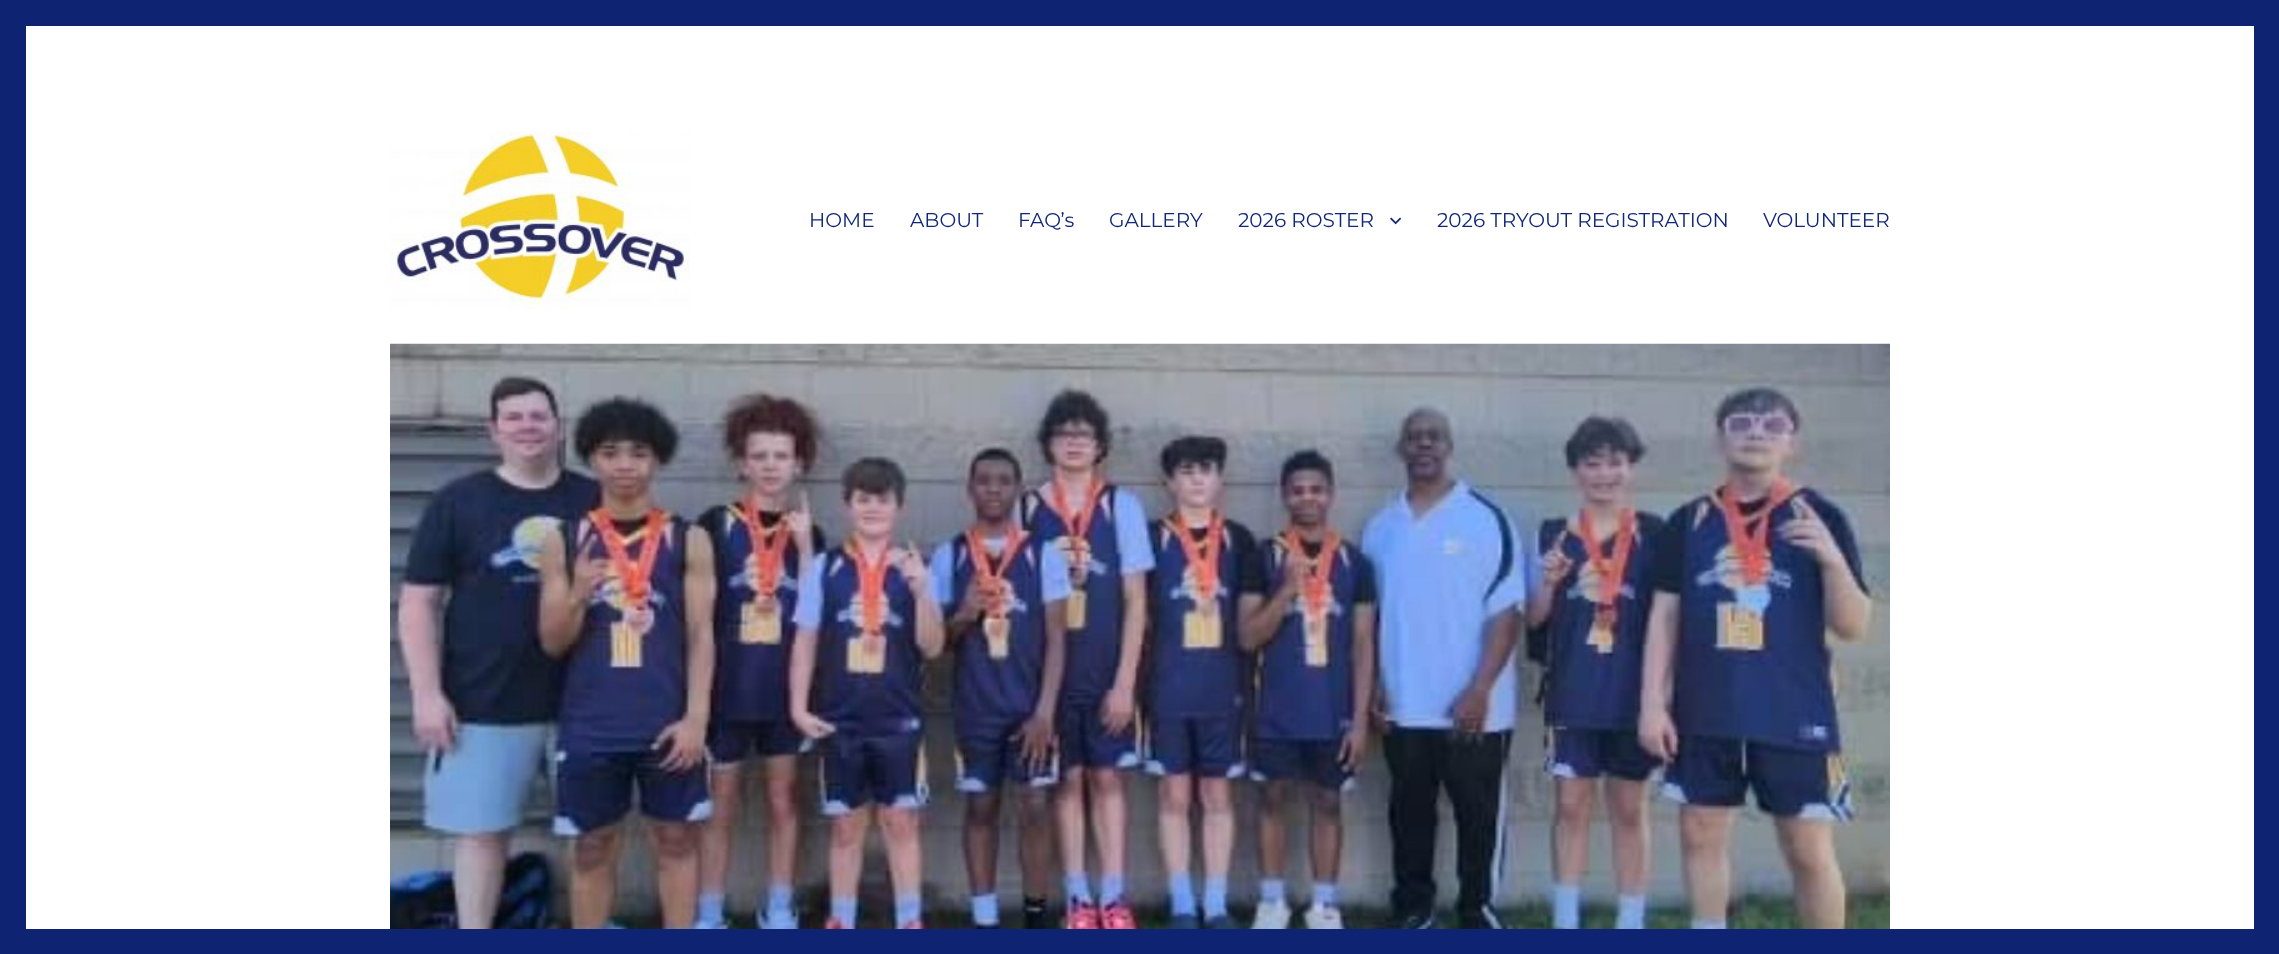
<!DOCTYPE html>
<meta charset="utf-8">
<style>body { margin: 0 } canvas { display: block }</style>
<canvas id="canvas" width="2279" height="954"></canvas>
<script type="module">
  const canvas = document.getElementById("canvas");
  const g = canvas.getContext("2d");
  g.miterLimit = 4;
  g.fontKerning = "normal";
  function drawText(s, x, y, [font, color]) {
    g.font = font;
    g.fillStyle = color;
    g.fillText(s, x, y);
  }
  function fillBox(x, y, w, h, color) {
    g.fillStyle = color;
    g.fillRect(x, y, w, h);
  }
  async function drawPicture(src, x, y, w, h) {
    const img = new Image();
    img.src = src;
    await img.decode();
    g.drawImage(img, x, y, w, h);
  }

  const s1 = ["100 20px Montserrat", "#102678"];

  fillBox(0, 0, 2279, 954, "#0E2472");
  fillBox(26, 26, 2228, 903, "#FFFFFF");
  await drawPicture("pic1.png", 390, 131, 300, 178);
  drawText("HOME", 809, 227, s1);
  drawText("ABOUT", 910, 227, s1);
  drawText("FAQ’s", 1018, 227, s1);
  drawText("GALLERY", 1109, 227, s1);
  drawText("2026 ROSTER", 1238, 227, s1);
  await drawPicture("pic2.png", 1390, 217, 12, 8);
  drawText("2026 TRYOUT REGISTRATION", 1437, 227, s1);
  drawText("VOLUNTEER", 1763, 227, s1);
  await drawPicture("pic3.png", 390, 343, 1500, 586);
</script>
